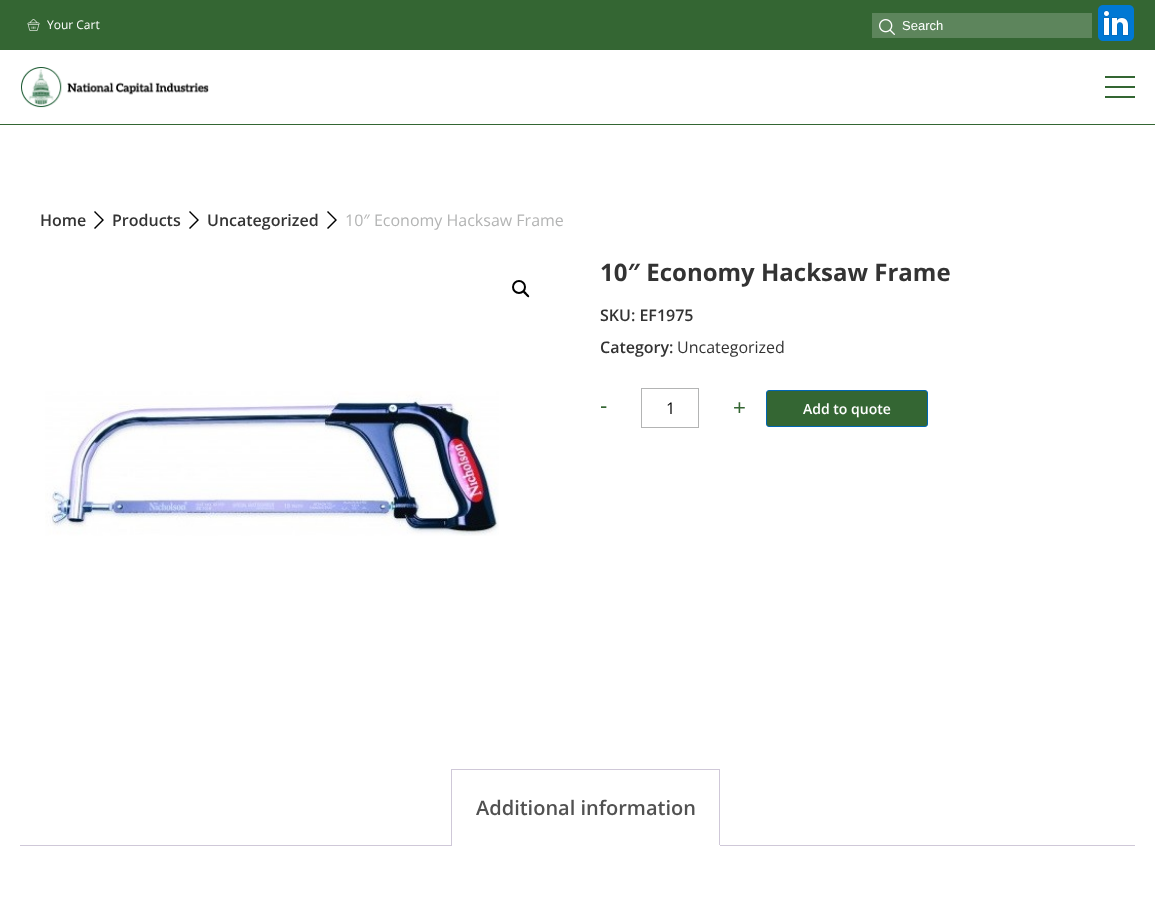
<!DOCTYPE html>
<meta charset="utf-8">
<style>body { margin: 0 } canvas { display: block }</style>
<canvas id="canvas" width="1155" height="902"></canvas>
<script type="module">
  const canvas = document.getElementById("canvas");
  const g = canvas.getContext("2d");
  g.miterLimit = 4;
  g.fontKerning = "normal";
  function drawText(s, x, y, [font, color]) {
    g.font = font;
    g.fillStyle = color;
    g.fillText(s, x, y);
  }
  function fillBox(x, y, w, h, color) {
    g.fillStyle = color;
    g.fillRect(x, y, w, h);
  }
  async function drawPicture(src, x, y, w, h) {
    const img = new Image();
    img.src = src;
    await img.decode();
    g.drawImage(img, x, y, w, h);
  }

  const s1 = ["12px Open Sans", "#FFFFFF"];
  const s2 = ["13px Liberation Sans", "#FFFFFF"];
  const s3 = ["600 16px Open Sans", "#333333"];
  const s4 = ["16px Open Sans", "#B3B4B4"];
  const s5 = ["bold 24px Open Sans", "#333333"];
  const s6 = ["16px Open Sans", "#333333"];
  const s7 = ["22px Liberation Sans", "#346633"];
  const s8 = ["16px Open Sans", "#000000"];
  const s9 = ["600 14px Open Sans", "#FFFFFF"];
  const s10 = ["600 20px Open Sans", "#515151"];

  fillBox(0, 0, 1155, 902, "#FFFFFF");
  fillBox(0, 0, 1155, 50, "#346633");
  await drawPicture("pic1.png", 27, 19, 13, 12);
  drawText("Your Cart", 47, 29, s1);
  fillBox(872, 13, 220, 25, "#5D855C");
  await drawPicture("pic2.png", 879, 19, 16, 16);
  drawText("Search", 902, 30, s2);
  await drawPicture("pic3.png", 1098, 5, 36, 36);
  fillBox(0, 124, 1155, 1, "#346633");
  await drawPicture("pic4.png", 21, 67, 188, 41);
  fillBox(1105, 76, 30, 2, "#346633");
  fillBox(1105, 86, 30, 2, "#346633");
  fillBox(1105, 96, 30, 2, "#346633");
  drawText("Home", 40, 226, s3);
  g.fillStyle = "#000000";
  g.beginPath();
  g.moveTo(104, 220);
  g.lineTo(95, 229);
  g.lineTo(94, 228);
  g.lineTo(102, 220);
  g.lineTo(94, 212);
  g.lineTo(95, 211);
  g.closePath();
  g.fill();
  drawText("Products", 112, 226, s3);
  g.fillStyle = "#000000";
  g.beginPath();
  g.moveTo(199, 220);
  g.lineTo(190, 229);
  g.lineTo(189, 228);
  g.lineTo(197, 220);
  g.lineTo(189, 212);
  g.lineTo(190, 211);
  g.closePath();
  g.fill();
  drawText("Uncategorized", 207, 226, s3);
  g.fillStyle = "#000000";
  g.beginPath();
  g.moveTo(337, 220);
  g.lineTo(328, 229);
  g.lineTo(327, 228);
  g.lineTo(335, 220);
  g.lineTo(327, 212);
  g.lineTo(328, 211);
  g.closePath();
  g.fill();
  drawText("10″ Economy Hacksaw Frame", 345, 226, s4);
  g.beginPath();
  g.arc(519, 287, 6, 0, Math.PI * 2);
  g.strokeStyle = "#000000";
  g.lineWidth = 2;
  g.stroke();
  g.fillStyle = "#000000";
  g.beginPath();
  g.moveTo(523.5, 291.5);
  g.bezierCurveTo(524.5, 290, 526.5, 293, 527, 293.5);
  g.bezierCurveTo(527.5, 294, 530, 296, 529, 297);
  g.bezierCurveTo(528, 298, 526, 295.5, 525.5, 295);
  g.bezierCurveTo(525, 294, 522, 292.5, 523.5, 291.5);
  g.closePath();
  g.fill();
  await drawPicture("pic5.png", 45, 391, 454, 145);
  drawText("10″ Economy Hacksaw Frame", 600, 281, s5);
  drawText("SKU: EF1975", 600, 321, s3);
  drawText("Category:", 600, 353, s3);
  drawText("Uncategorized", 677, 353, s6);
  drawText("-", 600, 413, s7);
  g.strokeStyle = "#B3B4B4";
  g.lineWidth = 1;
  g.strokeRect(641.5, 388.5, 57, 39);
  drawText("1", 666, 414, s8);
  drawText("+", 733, 415, s7);
  g.beginPath();
  g.roundRect(766.5, 390.5, 161, 36, 2.5);
  g.fill();
  g.strokeStyle = "#0066B4";
  g.stroke();
  drawText("Add to quote", 803, 414, s9);
  fillBox(451, 769, 269, 1, "#CFC8D8");
  fillBox(20, 845, 1115, 1, "#CFC8D8");
  fillBox(719, 769, 1, 77, "#CFC8D8");
  fillBox(451, 845, 269, 1, "#FFFFFF");
  fillBox(451, 769, 1, 77, "#CFC8D8");
  drawText("Additional information", 476, 815, s10);
</script>
